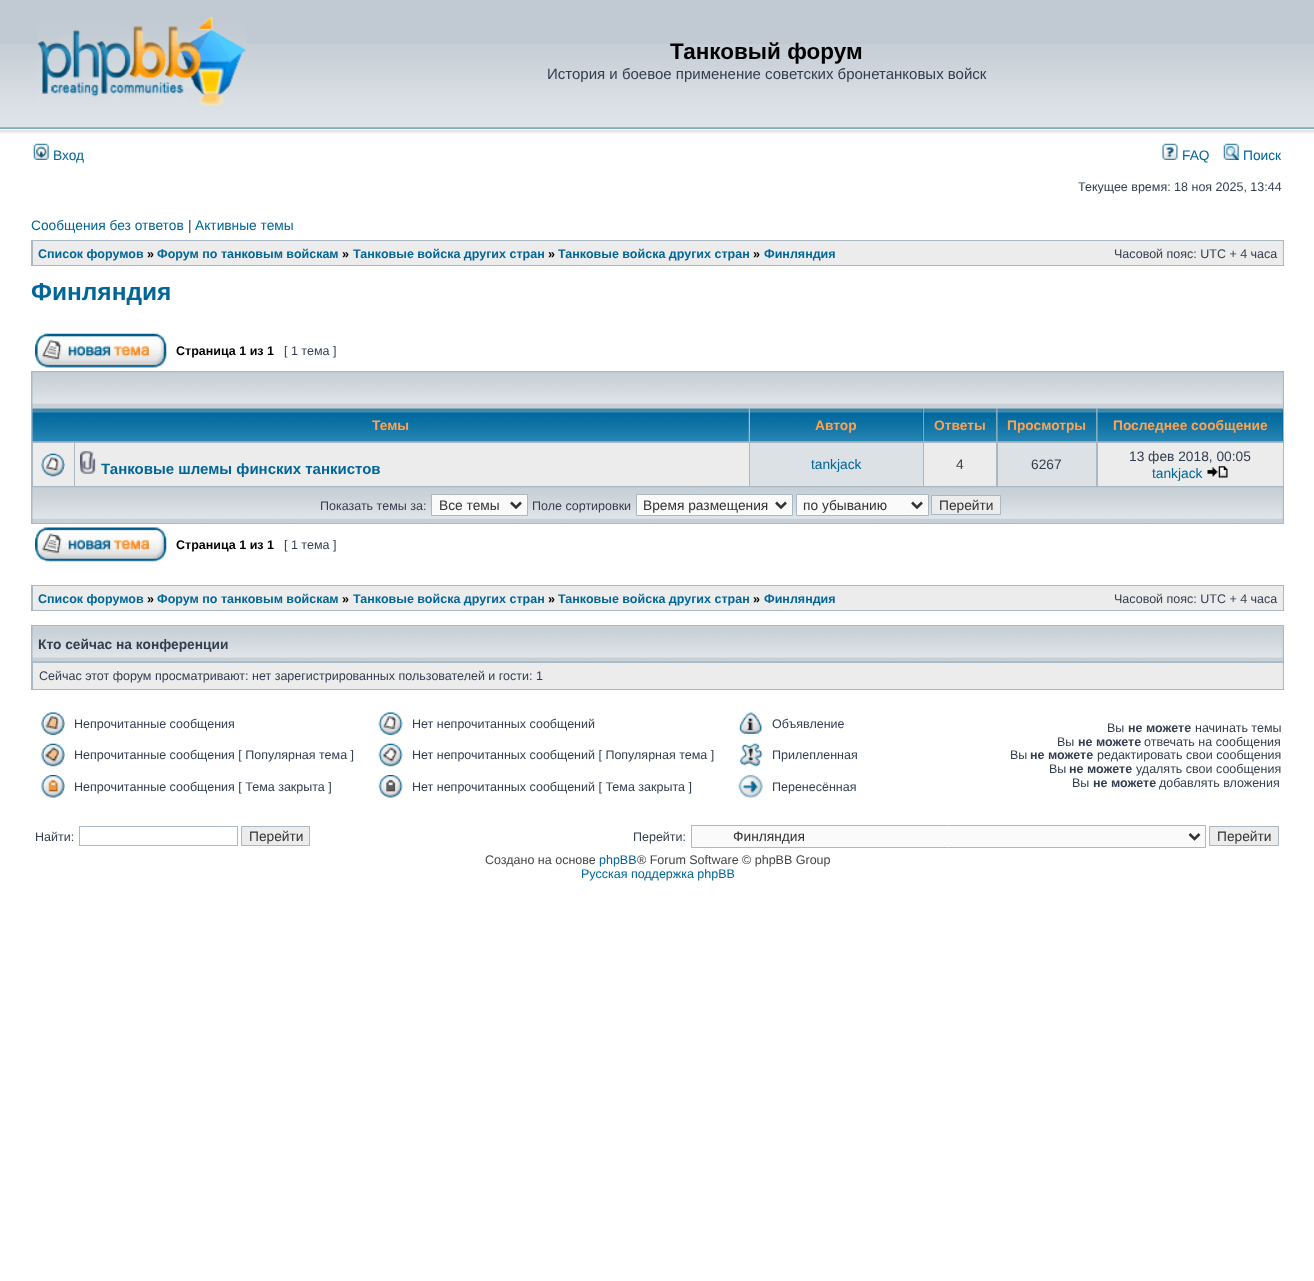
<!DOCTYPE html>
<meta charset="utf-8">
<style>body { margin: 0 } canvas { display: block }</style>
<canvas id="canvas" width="1314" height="1281"></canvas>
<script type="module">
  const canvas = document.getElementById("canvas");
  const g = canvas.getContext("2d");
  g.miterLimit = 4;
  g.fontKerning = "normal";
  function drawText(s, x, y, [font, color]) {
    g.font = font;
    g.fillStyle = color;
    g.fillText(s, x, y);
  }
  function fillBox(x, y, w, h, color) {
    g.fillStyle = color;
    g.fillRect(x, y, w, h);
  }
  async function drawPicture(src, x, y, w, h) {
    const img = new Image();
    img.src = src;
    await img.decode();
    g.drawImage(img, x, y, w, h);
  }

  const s1 = ["bold 22.5px Liberation Sans", "#000000"];
  const s2 = ["15px Liberation Sans", "#323D4F"];
  const s3 = ["13.75px Liberation Sans", "#006597"];
  const s4 = ["12.5px Liberation Sans", "#323D4F"];
  const s5 = ["13.75px Liberation Sans", "#323D4F"];
  const s6 = ["bold 12.5px Liberation Sans", "#006597"];
  const s7 = ["bold 12.5px Liberation Sans", "#000000"];
  const s8 = ["bold 24.5px Liberation Sans", "#006597"];
  const s9 = ["bold 13.75px Liberation Sans", "#FFA34F"];
  const s10 = ["bold 15px Liberation Sans", "#006597"];
  const s11 = ["13.75px Liberation Sans", "#333333"];
  const s12 = ["bold 13.75px Liberation Sans", "#323D4F"];
  const s13 = ["bold 12.5px Liberation Sans", "#323D4F"];
  const s14 = ["12.5px Liberation Sans", "#444444"];
  const s15 = ["12.5px Liberation Sans", "#006597"];

  fillBox(0, 0, 1314, 1281, "#FFFFFF");
  fillBox(0, 0, 1314, 44, "#C1CAD2");
  await drawPicture("pic1.png", 0, 44, 1314, 97);
  await drawPicture("pic2.png", 37, 17, 210, 89);
  drawText("Танковый форум", 670, 59, s1);
  drawText("История и боевое применение советских бронетанковых войск", 547, 79, s2);
  await drawPicture("pic3.png", 33, 143, 16, 17);
  drawText("Вход", 53, 160, s3);
  await drawPicture("pic4.png", 1162, 143, 16, 17);
  drawText("FAQ", 1182, 160, s3);
  await drawPicture("pic5.png", 1223, 143, 16, 17);
  drawText("Поиск", 1243, 160, s3);
  drawText("Текущее время: 18 ноя 2025, 13:44", 1078, 191, s4);
  drawText("Сообщения без ответов", 31, 230, s3);
  drawText("|", 188, 230, s5);
  drawText("Активные темы", 195, 230, s3);
  fillBox(31, 240, 1253, 26, "#A9B8C2");
  fillBox(33, 241, 1250, 24, "#ECECEC");
  drawText("Список форумов", 38, 258, s6);
  drawText("»", 147, 258, s7);
  drawText("Форум по танковым войскам", 157, 258, s6);
  drawText("»", 342, 258, s7);
  drawText("Танковые войска других стран", 353, 258, s6);
  drawText("»", 548, 258, s7);
  drawText("Танковые войска других стран", 558, 258, s6);
  drawText("»", 753, 258, s7);
  drawText("Финляндия", 764, 258, s6);
  drawText("Часовой пояс: UTC + 4 часа", 1114, 258, s4);
  drawText("Финляндия", 31, 300, s8);
  await drawPicture("pic6.png", 35, 333, 132, 35);
  drawText("Страница 1 из 1", 176, 355, s7);
  drawText("[ 1 тема ]", 284, 355, s4);
  fillBox(31, 371, 1253, 153, "#A9B8C2");
  fillBox(33, 373, 1250, 35, "#C7D0D7");
  await drawPicture("pic7.png", 32, 372, 1251, 36);
  await drawPicture("pic8.png", 32, 408, 717, 34);
  drawText("Темы", 372, 430, s9);
  fillBox(922, 409, 1, 32, "#006699");
  await drawPicture("pic9.png", 750, 408, 173, 34);
  drawText("Автор", 815, 430, s9);
  await drawPicture("pic10.png", 923, 408, 74, 34);
  drawText("Ответы", 934, 430, s9);
  await drawPicture("pic11.png", 997, 408, 100, 34);
  drawText("Просмотры", 1007, 430, s9);
  fillBox(1282, 409, 1, 32, "#006699");
  await drawPicture("pic12.png", 1097, 408, 186, 34);
  drawText("Последнее сообщение", 1113, 430, s9);
  fillBox(33, 443, 41, 43, "#ECECEC");
  await drawPicture("pic13.png", 41, 453, 24, 24);
  fillBox(75, 443, 674, 43, "#ECECEC");
  await drawPicture("pic14.png", 80, 451, 16, 23);
  drawText("Танковые шлемы финских танкистов", 101, 474, s10);
  fillBox(750, 443, 173, 43, "#DCE1E5");
  drawText("tankjack", 811, 469, s3);
  fillBox(924, 443, 72, 43, "#ECECEC");
  drawText("4", 956, 469, s5);
  fillBox(998, 443, 98, 43, "#DCE1E5");
  drawText("6267", 1031, 469, s5);
  fillBox(1098, 443, 185, 43, "#ECECEC");
  drawText("13 фев 2018, 00:05", 1129, 461, s5);
  drawText("tankjack", 1152, 478, s3);
  await drawPicture("pic15.png", 1207, 466, 21, 12);
  fillBox(33, 488, 1250, 35, "#C7D0D7");
  await drawPicture("pic7.png", 32, 487, 1251, 36);
  drawText("Показать темы за:", 320, 510, s4);
  g.fillStyle = "#FAFAFA";
  g.beginPath();
  g.rect(431.5, 494.5, 96, 21);
  g.fill();
  g.strokeStyle = "#A9B8C2";
  g.stroke();
  g.beginPath();
  g.moveTo(511, 502.5);
  g.lineTo(516, 507.5);
  g.lineTo(521, 502.5);
  g.strokeStyle = "#333333";
  g.lineWidth = 2.5;
  g.stroke();
  drawText("Все темы", 439, 510, s11);
  drawText("Поле сортировки", 532, 510, s4);
  g.fillStyle = "#FAFAFA";
  g.beginPath();
  g.rect(636.5, 494.5, 156, 21);
  g.fill();
  g.strokeStyle = "#A9B8C2";
  g.lineWidth = 1;
  g.stroke();
  g.beginPath();
  g.moveTo(776, 502.5);
  g.lineTo(781, 507.5);
  g.lineTo(786, 502.5);
  g.strokeStyle = "#333333";
  g.lineWidth = 2.5;
  g.stroke();
  drawText("Время размещения", 643, 510, s11);
  g.fillStyle = "#FAFAFA";
  g.beginPath();
  g.rect(796.5, 494.5, 132, 21);
  g.fill();
  g.strokeStyle = "#A9B8C2";
  g.lineWidth = 1;
  g.stroke();
  g.beginPath();
  g.moveTo(912, 502.5);
  g.lineTo(917, 507.5);
  g.lineTo(922, 502.5);
  g.strokeStyle = "#333333";
  g.lineWidth = 2.5;
  g.stroke();
  drawText("по убыванию", 803, 510, s11);
  g.fillStyle = "#ECECEC";
  g.beginPath();
  g.rect(931.5, 495.5, 69, 19);
  g.fill();
  g.strokeStyle = "#A9B8C2";
  g.lineWidth = 1;
  g.stroke();
  drawText("Перейти", 939, 510, s11);
  await drawPicture("pic16.png", 35, 527, 132, 35);
  drawText("Страница 1 из 1", 176, 549, s7);
  drawText("[ 1 тема ]", 284, 549, s4);
  fillBox(31, 585, 1253, 26, "#A9B8C2");
  fillBox(33, 586, 1250, 24, "#ECECEC");
  drawText("Список форумов", 38, 603, s6);
  drawText("»", 147, 603, s7);
  drawText("Форум по танковым войскам", 157, 603, s6);
  drawText("»", 342, 603, s7);
  drawText("Танковые войска других стран", 353, 603, s6);
  drawText("»", 548, 603, s7);
  drawText("Танковые войска других стран", 558, 603, s6);
  drawText("»", 753, 603, s7);
  drawText("Финляндия", 764, 603, s6);
  drawText("Часовой пояс: UTC + 4 часа", 1114, 603, s4);
  fillBox(31, 625, 1253, 65, "#A9B8C2");
  fillBox(33, 626, 1250, 35, "#C7D0D7");
  await drawPicture("pic17.png", 32, 626, 1251, 36);
  drawText("Кто сейчас на конференции", 38, 649, s12);
  fillBox(33, 663, 1250, 26, "#ECECEC");
  drawText("Сейчас этот форум просматривают: нет зарегистрированных пользователей и гости: 1", 39, 680, s4);
  await drawPicture("pic18.png", 41, 712, 24, 23);
  drawText("Непрочитанные сообщения", 74, 728, s4);
  await drawPicture("pic19.png", 378, 712, 25, 23);
  drawText("Нет непрочитанных сообщений", 412, 728, s4);
  await drawPicture("pic20.png", 738, 712, 25, 22);
  drawText("Объявление", 772, 728, s4);
  await drawPicture("pic21.png", 41, 743, 24, 24);
  drawText("Непрочитанные сообщения [ Популярная тема ]", 74, 759, s4);
  await drawPicture("pic22.png", 378, 743, 25, 24);
  drawText("Нет непрочитанных сообщений [ Популярная тема ]", 412, 759, s4);
  await drawPicture("pic23.png", 739, 743, 24, 24);
  drawText("Прилепленная", 772, 759, s4);
  await drawPicture("pic24.png", 41, 775, 24, 23);
  drawText("Непрочитанные сообщения [ Тема закрыта ]", 74, 791, s4);
  await drawPicture("pic25.png", 378, 775, 25, 23);
  drawText("Нет непрочитанных сообщений [ Тема закрыта ]", 412, 791, s4);
  await drawPicture("pic26.png", 738, 775, 25, 23);
  drawText("Перенесённая", 772, 791, s4);
  drawText("Вы", 1107, 732, s4);
  drawText("не можете", 1128, 732, s13);
  drawText("начинать темы", 1195, 732, s4);
  drawText("Вы", 1057, 746, s4);
  drawText("не можете", 1078, 746, s13);
  drawText("отвечать на сообщения", 1144, 746, s4);
  drawText("Вы", 1010, 759, s4);
  drawText("не можете", 1030, 759, s13);
  drawText("редактировать свои сообщения", 1097, 759, s4);
  drawText("Вы", 1049, 773, s4);
  drawText("не можете", 1069, 773, s13);
  drawText("удалять свои сообщения", 1136, 773, s4);
  drawText("Вы", 1072, 787, s4);
  drawText("не можете", 1093, 787, s13);
  drawText("добавлять вложения", 1159, 787, s4);
  drawText("Найти:", 35, 841, s4);
  g.strokeRect(79.5, 826.5, 158, 19);
  g.fillStyle = "#ECECEC";
  g.beginPath();
  g.rect(241.5, 826.5, 68, 19);
  g.fill();
  g.stroke();
  drawText("Перейти", 249, 841, s11);
  drawText("Перейти:", 633, 841, s4);
  g.fillStyle = "#FAFAFA";
  g.beginPath();
  g.rect(691.5, 825.5, 514, 22);
  g.fill();
  g.stroke();
  g.beginPath();
  g.moveTo(1189.5, 834);
  g.lineTo(1194.5, 839);
  g.lineTo(1199.5, 834);
  g.strokeStyle = "#333333";
  g.lineWidth = 2.5;
  g.stroke();
  drawText("Финляндия", 733, 841, s11);
  g.fillStyle = "#ECECEC";
  g.beginPath();
  g.rect(1209.5, 826.5, 69, 19);
  g.fill();
  g.strokeStyle = "#A9B8C2";
  g.lineWidth = 1;
  g.stroke();
  drawText("Перейти", 1217, 841, s11);
  drawText("Создано на основе", 485, 864, s14);
  drawText("phpBB", 599, 864, s15);
  drawText("® Forum Software © phpBB Group", 637, 864, s14);
  drawText("Русская поддержка phpBB", 581, 878, s15);
</script>
